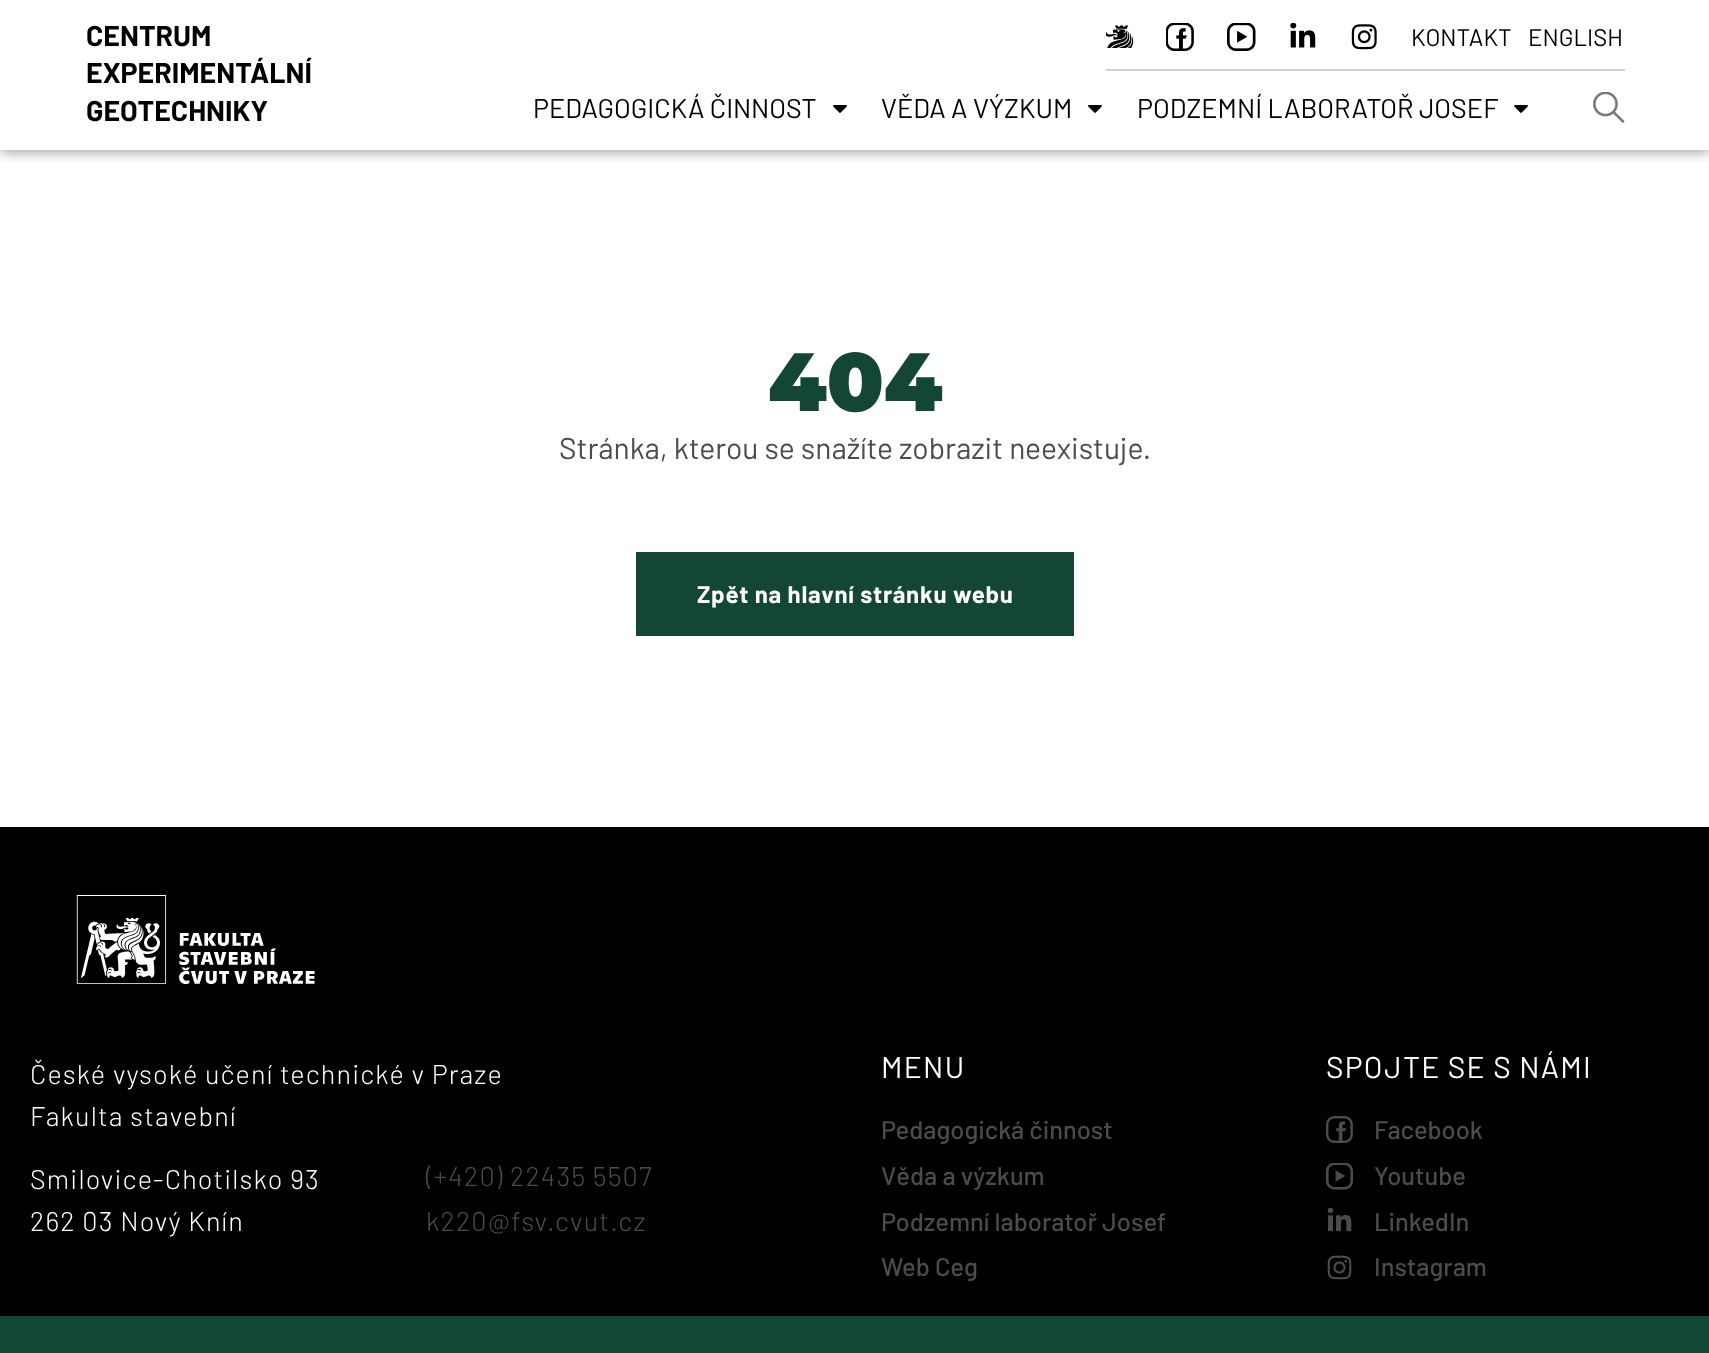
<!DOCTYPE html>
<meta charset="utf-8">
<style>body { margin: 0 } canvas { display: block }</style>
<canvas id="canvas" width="1709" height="1353"></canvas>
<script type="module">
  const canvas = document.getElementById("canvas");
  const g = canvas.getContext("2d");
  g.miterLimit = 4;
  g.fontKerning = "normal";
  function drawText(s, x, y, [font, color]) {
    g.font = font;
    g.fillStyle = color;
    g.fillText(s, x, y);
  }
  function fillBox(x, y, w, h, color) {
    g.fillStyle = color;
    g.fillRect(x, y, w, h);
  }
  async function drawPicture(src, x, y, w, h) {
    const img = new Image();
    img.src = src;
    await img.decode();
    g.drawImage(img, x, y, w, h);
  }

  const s1 = ["bold 28.5px Barlow", "#000000"];
  const s2 = ["24px Barlow", "#000000"];
  const s3 = ["27px Barlow", "#000000"];
  const s4 = ["900 82.5px Montserrat", "#144635"];
  const s5 = ["30px Barlow", "#4C4C4C"];
  const s6 = ["bold 24px Barlow", "#FFFFFF"];
  const s7 = ["300 27px Barlow", "#FFFFFF"];
  const s8 = ["300 27px Barlow", "#4C4C4C"];
  const s9 = ["30px Barlow", "#FFFFFF"];
  const s10 = ["500 25.5px Barlow", "#4C4C4C"];

  fillBox(0, 0, 1709, 1353, "#FFFFFF");
  g.save();
  g.beginPath();
  g.rect(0, 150, 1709, 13);
  g.clip();
  g.fillStyle = "rgba(0, 0, 0, 0.5)";
  g.filter = "blur(7.5px)";
  g.beginPath();
  g.rect(0, 0, 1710, 150);
  g.fill();
  g.filter = "none";
  g.restore();
  drawText("CENTRUM", 86, 46, s1);
  drawText("EXPERIMENTÁLNÍ", 86, 83, s1);
  drawText("GEOTECHNIKY", 86, 121, s1);
  fillBox(1106, 69, 519, 2, "#D1D1D1");
  await drawPicture("pic1.png", 1106, 25, 28, 23);
  await drawPicture("pic2.png", 1166, 23, 28, 28);
  await drawPicture("pic3.png", 1227, 23, 29, 28);
  await drawPicture("pic4.png", 1290, 23, 26, 25);
  await drawPicture("pic5.png", 1351, 24, 26, 26);
  drawText("KONTAKT", 1411, 46, s2);
  drawText("ENGLISH", 1528, 46, s2);
  drawText("PEDAGOGICKÁ ČINNOST", 533, 118, s3);
  await drawPicture("pic6.png", 833, 105, 14, 8);
  drawText("VĚDA A VÝZKUM", 881, 118, s3);
  await drawPicture("pic6.png", 1088, 105, 14, 8);
  drawText("PODZEMNÍ LABORATOŘ JOSEF", 1137, 118, s3);
  await drawPicture("pic6.png", 1514, 105, 14, 8);
  await drawPicture("pic7.png", 1593, 92, 32, 31);
  drawText("404", 768, 411, s4);
  drawText("Stránka, kterou se snažíte zobrazit neexistuje.", 559, 459, s5);
  fillBox(636, 552, 438, 84, "#144635");
  g.letterSpacing = "0.75px";
  drawText("Zpět na hlavní stránku webu", 697, 603, s6);
  fillBox(0, 827, 1709, 489, "#000000");
  await drawPicture("pic8.png", 76, 895, 239, 89);
  g.letterSpacing = "1.15px";
  drawText("České vysoké učení technické v Praze", 30, 1084, s7);
  drawText("Fakulta stavební", 30, 1126, s7);
  drawText("Smilovice-Chotilsko 93", 30, 1189, s7);
  drawText("262 03 Nový Knín", 30, 1231, s7);
  drawText("(+420) 22435 5507", 426, 1186, s8);
  drawText("k220@fsv.cvut.cz", 426, 1231, s8);
  g.letterSpacing = "1.25px";
  drawText("MENU", 881, 1078, s9);
  g.letterSpacing = "0px";
  drawText("Pedagogická činnost", 881, 1139, s10);
  drawText("Věda a výzkum", 881, 1185, s10);
  drawText("Podzemní laboratoř Josef", 881, 1231, s10);
  drawText("Web Ceg", 881, 1276, s10);
  g.letterSpacing = "1.25px";
  drawText("SPOJTE SE S NÁMI", 1326, 1078, s9);
  await drawPicture("pic9.png", 1326, 1116, 27, 27);
  g.letterSpacing = "0px";
  drawText("Facebook", 1374, 1139, s10);
  await drawPicture("pic10.png", 1326, 1163, 27, 27);
  drawText("Youtube", 1374, 1185, s10);
  await drawPicture("pic11.png", 1327, 1208, 25, 24);
  drawText("LinkedIn", 1374, 1231, s10);
  await drawPicture("pic12.png", 1327, 1255, 25, 25);
  drawText("Instagram", 1374, 1276, s10);
  fillBox(0, 1316, 1709, 37, "#144635");
</script>
